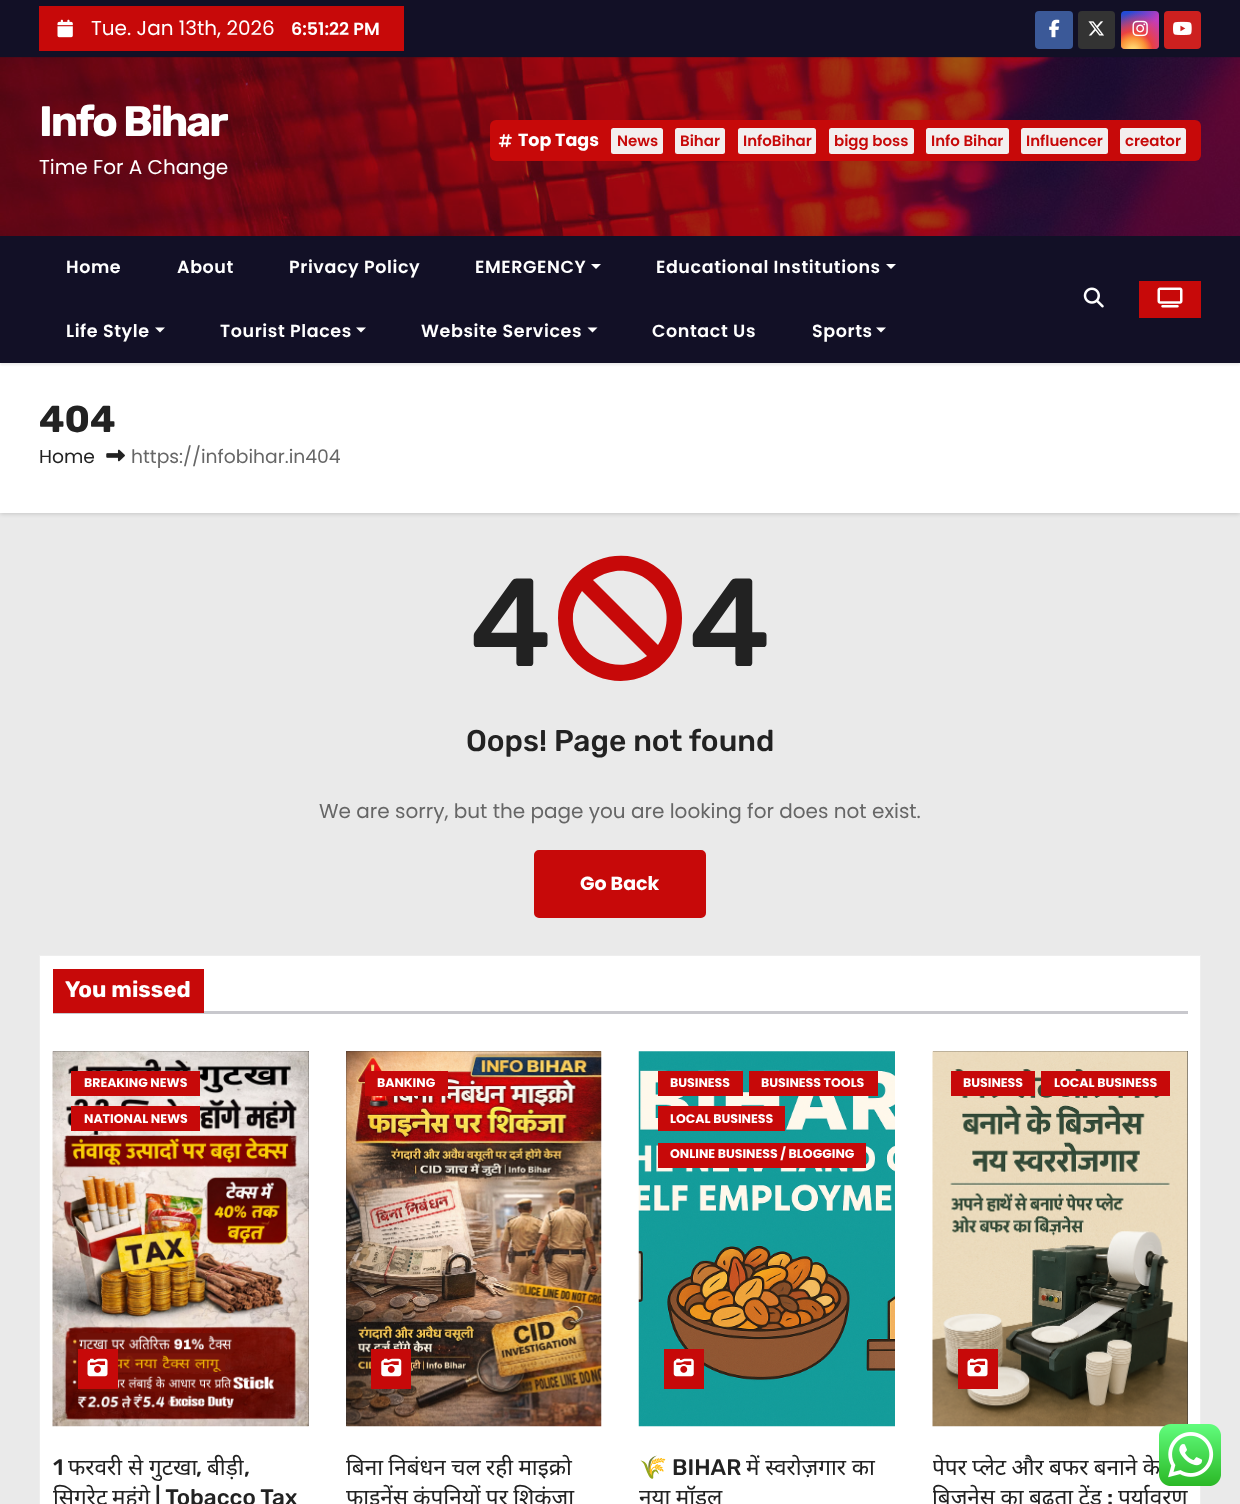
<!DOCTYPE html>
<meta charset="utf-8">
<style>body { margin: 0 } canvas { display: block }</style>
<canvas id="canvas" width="1240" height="1504"></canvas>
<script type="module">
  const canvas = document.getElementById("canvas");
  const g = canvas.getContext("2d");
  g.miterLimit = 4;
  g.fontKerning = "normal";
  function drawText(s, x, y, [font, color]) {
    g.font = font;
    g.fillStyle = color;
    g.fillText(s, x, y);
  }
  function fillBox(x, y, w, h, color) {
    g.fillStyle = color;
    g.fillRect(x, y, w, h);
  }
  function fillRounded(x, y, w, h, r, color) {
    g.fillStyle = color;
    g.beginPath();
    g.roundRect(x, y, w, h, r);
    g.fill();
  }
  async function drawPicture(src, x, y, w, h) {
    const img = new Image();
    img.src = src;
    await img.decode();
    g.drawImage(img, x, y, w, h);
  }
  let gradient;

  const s1 = ["20px Poppins", "#FFFFFF"];
  const s2 = ["600 17.5px Poppins", "#FFFFFF"];
  const s3 = ["bold 42.5px Rubik", "#FFFFFF"];
  const s4 = ["bold 17.5px Poppins", "#FFFFFF"];
  const s5 = ["600 15px Poppins", "#C70909"];
  const s6 = ["bold 37.5px Rubik", "#222222"];
  const s7 = ["18.75px Poppins", "#222222"];
  const s8 = ["18.75px Poppins", "#666666"];
  const s9 = ["500 125px Rubik", "#222222"];
  const s10 = ["500 30px Rubik", "#222222"];
  const s11 = ["20px Poppins", "#666666"];
  const s12 = ["bold 19px Poppins", "#FFFFFF"];
  const s13 = ["bold 22.5px Rubik", "#FFFFFF"];
  const s14 = ["bold 12.5px Poppins", "#FFFFFF"];
  const s15 = ["500 22.5px Rubik", "#222222"];
  const s16 = ["22.5px Noto Sans", "#222222"];
  const s17 = ["22.5px Noto Color Emoji", "#222222"];

  fillBox(0, 0, 1240, 1504, "#EAEAEA");
  fillBox(0, 0, 1240, 58, "#121026");
  fillBox(39, 6, 365, 45, "#C70909");
  await drawPicture("pic1.png", 57, 19, 16, 19);
  drawText("Tue. Jan 13th, 2026", 91, 35, s1);
  drawText("6:51:22 PM", 291, 35, s2);
  fillRounded(1035, 11, 38, 38, 4, "#3B5998");
  await drawPicture("pic2.png", 1049, 19, 11, 19);
  fillRounded(1078, 11, 37, 38, 4, "#333333");
  await drawPicture("pic3.png", 1088, 21, 16, 15);
  gradient = g.createLinearGradient(1121, 11, 1159, 49);
  gradient.addColorStop(0.12, "#234BD7");
  gradient.addColorStop(0.58, "#C33CBE");
  g.fillStyle = gradient;
  g.beginPath();
  g.roundRect(1121, 11, 38, 38, 4);
  g.fill();
  gradient = g.createRadialGradient(1133, 51, 0, 1133, 51, 47);
  gradient.addColorStop(0, "#FFE17D");
  gradient.addColorStop(0.1, "#FFCD69");
  gradient.addColorStop(0.28, "#FA9137");
  gradient.addColorStop(0.42, "#EB4141");
  gradient.addColorStop(0.82, "rgba(235, 65, 65, 0)");
  g.fillStyle = gradient;
  g.beginPath();
  g.roundRect(1121, 11, 38, 38, 4);
  g.fill();
  await drawPicture("pic4.png", 1132, 20, 16, 17);
  fillRounded(1164, 11, 37, 38, 4, "#CD201F");
  await drawPicture("pic5.png", 1173, 21, 19, 14);
  await drawPicture("pic6.png", 0, 57, 1240, 179);
  g.letterSpacing = "-2.1px";
  drawText("Info Bihar", 39, 136, s3);
  g.letterSpacing = "0px";
  drawText("Time For A Change", 39, 174, s1);
  fillRounded(490, 120, 711, 41, 6, "#C70909");
  await drawPicture("pic7.png", 498, 134, 14, 14);
  drawText("Top Tags", 518, 146, s4);
  fillRounded(611, 128, 52, 26, 2.5, "#F3EEEE");
  drawText("News", 617, 146, s5);
  fillRounded(675, 128, 50, 26, 2.5, "#F3EEEE");
  drawText("Bihar", 680, 146, s5);
  fillRounded(738, 128, 78, 26, 2.5, "#F3EEEE");
  drawText("InfoBihar", 743, 146, s5);
  fillRounded(829, 128, 85, 26, 2.5, "#F3EEEE");
  drawText("bigg boss", 834, 146, s5);
  fillRounded(926, 128, 83, 26, 2.5, "#F3EEEE");
  drawText("Info Bihar", 931, 146, s5);
  fillRounded(1021, 128, 87, 26, 2.5, "#F3EEEE");
  drawText("Influencer", 1026, 146, s5);
  fillRounded(1120, 128, 66, 26, 2.5, "#F3EEEE");
  drawText("creator", 1125, 146, s5);
  g.fillStyle = "rgba(0, 0, 0, 0.15)";
  g.filter = "blur(2px)";
  g.beginPath();
  g.rect(0, 364, 1240, 150);
  g.fill();
  g.filter = "none";
  fillBox(0, 363, 1240, 150, "#FFFFFF");
  g.fillStyle = "rgba(0, 0, 0, 0.08)";
  g.filter = "blur(1px)";
  g.beginPath();
  g.rect(0, 239, 1240, 126);
  g.fill();
  g.filter = "none";
  fillBox(0, 236, 1240, 127, "#121026");
  g.letterSpacing = "0.6px";
  drawText("Home", 66, 273, s2);
  drawText("About", 177, 273, s2);
  drawText("Privacy Policy", 289, 273, s2);
  drawText("EMERGENCY", 475, 273, s2);
  g.beginPath();
  g.moveTo(591, 264);
  g.lineTo(601, 264);
  g.lineTo(596, 269);
  g.closePath();
  g.fill();
  drawText("Educational Institutions", 656, 273, s2);
  g.beginPath();
  g.moveTo(886, 264);
  g.lineTo(896, 264);
  g.lineTo(891, 269);
  g.closePath();
  g.fill();
  drawText("Life Style", 66, 337, s2);
  g.beginPath();
  g.moveTo(155, 327.5);
  g.lineTo(165, 327.5);
  g.lineTo(160, 332.5);
  g.closePath();
  g.fill();
  drawText("Tourist Places", 220, 337, s2);
  g.beginPath();
  g.moveTo(356, 327.5);
  g.lineTo(366, 327.5);
  g.lineTo(361, 332.5);
  g.closePath();
  g.fill();
  drawText("Website Services", 421, 337, s2);
  g.beginPath();
  g.moveTo(587.5, 327.5);
  g.lineTo(597.5, 327.5);
  g.lineTo(592.5, 332.5);
  g.closePath();
  g.fill();
  drawText("Contact Us", 652, 337, s2);
  drawText("Sports", 812, 337, s2);
  g.beginPath();
  g.moveTo(876, 327.5);
  g.lineTo(886, 327.5);
  g.lineTo(881, 332.5);
  g.closePath();
  g.fill();
  await drawPicture("pic8.png", 1083, 287, 21, 21);
  fillBox(1139, 281, 62, 37, "#C70909");
  await drawPicture("pic9.png", 1157, 287, 26, 21);
  g.letterSpacing = "0px";
  drawText("404", 39, 432, s6);
  drawText("Home", 39, 463, s7);
  await drawPicture("pic10.png", 106, 449, 19, 13);
  drawText("https://infobihar.in404", 131, 463, s8);
  drawText("4", 470, 666, s9);
  g.fillStyle = "#C70909";
  g.beginPath();
  g.moveTo(647, 656);
  g.lineTo(582, 591);
  g.bezierCurveTo(577, 598, 574, 606, 573, 614);
  g.bezierCurveTo(570, 654, 615, 679, 647, 656);
  g.closePath();
  g.moveTo(658, 645);
  g.bezierCurveTo(681, 613, 656, 568, 616, 571);
  g.bezierCurveTo(608, 572, 600, 575, 593, 580);
  g.closePath();
  g.moveTo(558, 618);
  g.bezierCurveTo(558, 559, 633, 533, 670, 580);
  g.bezierCurveTo(678, 591, 682, 605, 682, 618);
  g.bezierCurveTo(682, 632, 678, 645, 670, 656);
  g.bezierCurveTo(633, 704, 558, 678, 558, 618);
  g.closePath();
  g.fill();
  drawText("4", 689, 666, s9);
  drawText("Oops! Page not found", 466, 751, s10);
  drawText("We are sorry, but the page you are looking for does not exist.", 319, 818, s11);
  g.fillStyle = "#C70909";
  g.beginPath();
  g.roundRect(535.5, 851.5, 169, 65, 3.5);
  g.fill();
  g.strokeStyle = "#C70909";
  g.lineWidth = 3;
  g.stroke();
  drawText("Go Back", 580, 890, s12);
  g.beginPath();
  g.rect(39.5, 955.5, 1161, 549);
  g.fill();
  g.strokeStyle = "#EEEEEE";
  g.lineWidth = 1;
  g.stroke();
  fillBox(53, 1011, 1135, 3, "#C8C8CD");
  fillBox(53, 969, 151, 44, "#C70909");
  drawText("You missed", 65, 997, s13);
  fillBox(53, 1051, 256, 375, "#333333");
  await drawPicture("pic11.png", 52, 1051, 257, 376);
  fillBox(71, 1071, 129, 25, "#C70909");
  drawText("BREAKING NEWS", 84, 1087, s14);
  fillBox(71, 1106, 129, 25, "#C70909");
  drawText("NATIONAL NEWS", 84, 1123, s14);
  fillBox(78, 1349, 40, 40, "#C70909");
  await drawPicture("pic12.png", 87, 1358, 21, 19);
  drawText("1", 53, 1475, s15);
  drawText("फरवरी से गुटखा", 68, 1475, s16);
  drawText(",", 196, 1475, s15);
  drawText("बीड़ी", 207, 1475, s16);
  drawText(",", 244, 1475, s15);
  drawText("सिगरेट", 53, 1505, s16);
  drawText("महंगे", 112, 1505, s16);
  drawText("| Tobacco Tax", 155, 1505, s15);
  fillBox(346, 1051, 255, 375, "#333333");
  await drawPicture("pic13.png", 346, 1051, 256, 376);
  fillBox(365, 1071, 83, 25, "#C70909");
  drawText("BANKING", 377, 1087, s14);
  fillBox(371, 1349, 40, 40, "#C70909");
  await drawPicture("pic14.png", 381, 1358, 21, 19);
  g.wordSpacing = "-0.5px";
  drawText("बिना निबंधन चल रही माइक्रो", 346, 1475, s16);
  drawText("फाइनेंस कंपनियों पर शिकंजा", 346, 1505, s16);
  await drawPicture("pic15.png", 638, 1051, 257, 376);
  fillBox(658, 1071, 85, 25, "#C70909");
  g.wordSpacing = "0px";
  drawText("BUSINESS", 670, 1087, s14);
  fillBox(749, 1071, 129, 25, "#C70909");
  drawText("BUSINESS TOOLS", 761, 1087, s14);
  fillBox(658, 1106, 127, 25, "#C70909");
  drawText("LOCAL BUSINESS", 670, 1123, s14);
  fillBox(658, 1143, 208, 25, "#C70909");
  drawText("ONLINE BUSINESS / BLOGGING", 670, 1158, s14);
  fillBox(664, 1349, 40, 40, "#C70909");
  await drawPicture("pic16.png", 673, 1358, 21, 19);
  g.save();
  g.beginPath();
  g.rect(639, 1454, 256, 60);
  g.clip();
  drawText("🌾", 639, 1475, s17);
  g.restore();
  drawText("BIHAR", 672, 1475, s15);
  drawText("में स्वरोज़गार का", 746, 1475, s16);
  g.wordSpacing = "-0.5px";
  drawText("नया मॉडल", 639, 1505, s16);
  fillBox(933, 1051, 255, 373, "#333333");
  await drawPicture("pic17.png", 932, 1051, 256, 376);
  fillBox(951, 1071, 84, 25, "#C70909");
  g.wordSpacing = "0px";
  drawText("BUSINESS", 963, 1087, s14);
  fillBox(1041, 1071, 129, 25, "#C70909");
  drawText("LOCAL BUSINESS", 1054, 1087, s14);
  fillBox(958, 1349, 40, 40, "#C70909");
  await drawPicture("pic12.png", 967, 1358, 21, 19);
  g.save();
  g.beginPath();
  g.rect(933, 1454, 255, 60);
  g.clip();
  g.wordSpacing = "-0.5px";
  drawText("पेपर प्लेट और बफर बनाने के", 932, 1475, s16);
  drawText("बिज़नेस का बढ़ता ट्रेंड", 932, 1505, s16);
  g.restore();
  drawText(":", 1107, 1505, s15);
  drawText("पर्यावरण", 1118, 1505, s16);
  await drawPicture("pic18.png", 1159, 1424, 62, 62);
</script>
